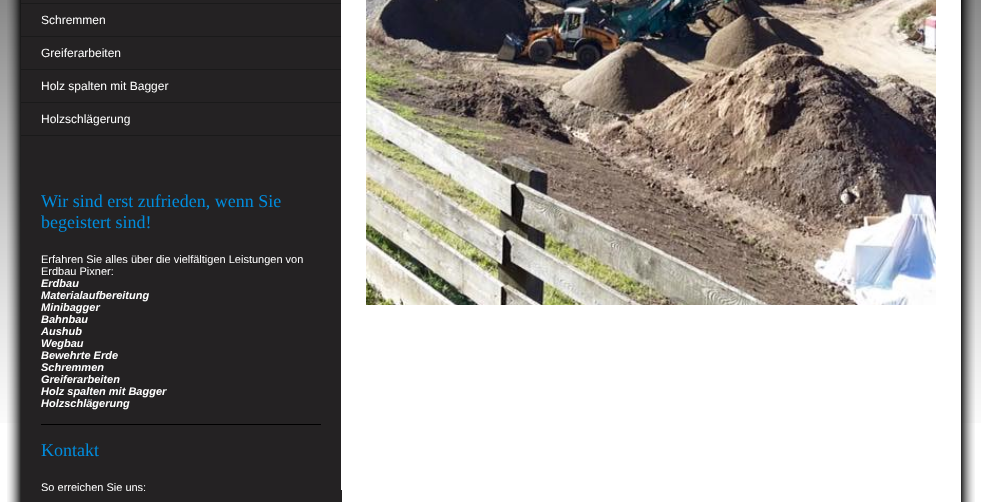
<!DOCTYPE html>
<meta charset="utf-8">
<style>body { margin: 0 } canvas { display: block }</style>
<canvas id="canvas" width="981" height="502"></canvas>
<script type="module">
  const canvas = document.getElementById("canvas");
  const g = canvas.getContext("2d");
  g.miterLimit = 4;
  g.fontKerning = "normal";
  function drawText(s, x, y, [font, color]) {
    g.font = font;
    g.fillStyle = color;
    g.fillText(s, x, y);
  }
  function fillBox(x, y, w, h, color) {
    g.fillStyle = color;
    g.fillRect(x, y, w, h);
  }
  async function drawPicture(src, x, y, w, h) {
    const img = new Image();
    img.src = src;
    await img.decode();
    g.drawImage(img, x, y, w, h);
  }

  const s1 = ["12px Liberation Sans", "#FFFFFF"];
  const s2 = ["18px Liberation Serif", "#008DDE"];
  const s3 = ["11px Liberation Sans", "#FFFFFF"];
  const s4 = ["italic bold 11px Liberation Sans", "#FFFFFF"];

  fillBox(0, 0, 981, 502, "#FFFFFF");
  await drawPicture("pic1.png", 0, 0, 981, 423);
  await drawPicture("pic2.png", 7, 0, 14, 502);
  fillBox(341, 490, 1, 12, "#242223");
  fillBox(21, 0, 320, 502, "#242223");
  fillBox(21, 3, 320, 1, "#1A1A1A");
  fillBox(21, 36, 320, 1, "#1A1A1A");
  drawText("Schremmen", 41, 24, s1);
  fillBox(21, 69, 320, 1, "#1A1A1A");
  drawText("Greiferarbeiten", 41, 57, s1);
  fillBox(21, 102, 320, 1, "#1A1A1A");
  drawText("Holz spalten mit Bagger", 41, 90, s1);
  fillBox(21, 135, 320, 1, "#1A1A1A");
  drawText("Holzschlägerung", 41, 123, s1);
  drawText("Wir sind erst zufrieden, wenn Sie", 41, 207, s2);
  drawText("begeistert sind!", 41, 228, s2);
  drawText("Erfahren Sie alles über die vielfältigen Leistungen von", 41, 263, s3);
  drawText("Erdbau Pixner:", 41, 275, s3);
  drawText("Erdbau", 41, 287, s4);
  drawText("Materialaufbereitung", 41, 299, s4);
  drawText("Minibagger", 41, 311, s4);
  drawText("Bahnbau", 41, 323, s4);
  drawText("Aushub", 41, 335, s4);
  drawText("Wegbau", 41, 347, s4);
  drawText("Bewehrte Erde", 41, 359, s4);
  drawText("Schremmen", 41, 371, s4);
  drawText("Greiferarbeiten", 41, 383, s4);
  drawText("Holz spalten mit Bagger", 41, 395, s4);
  drawText("Holzschlägerung", 41, 407, s4);
  fillBox(41, 424, 280, 1, "#000000");
  drawText("Kontakt", 41, 456, s2);
  drawText("So erreichen Sie uns:", 41, 491, s3);
  fillBox(341, 0, 620, 423, "#FFFFFF");
  await drawPicture("pic3.png", 366, 0, 570, 305);
  await drawPicture("pic4.png", 961, 0, 14, 502);
</script>
